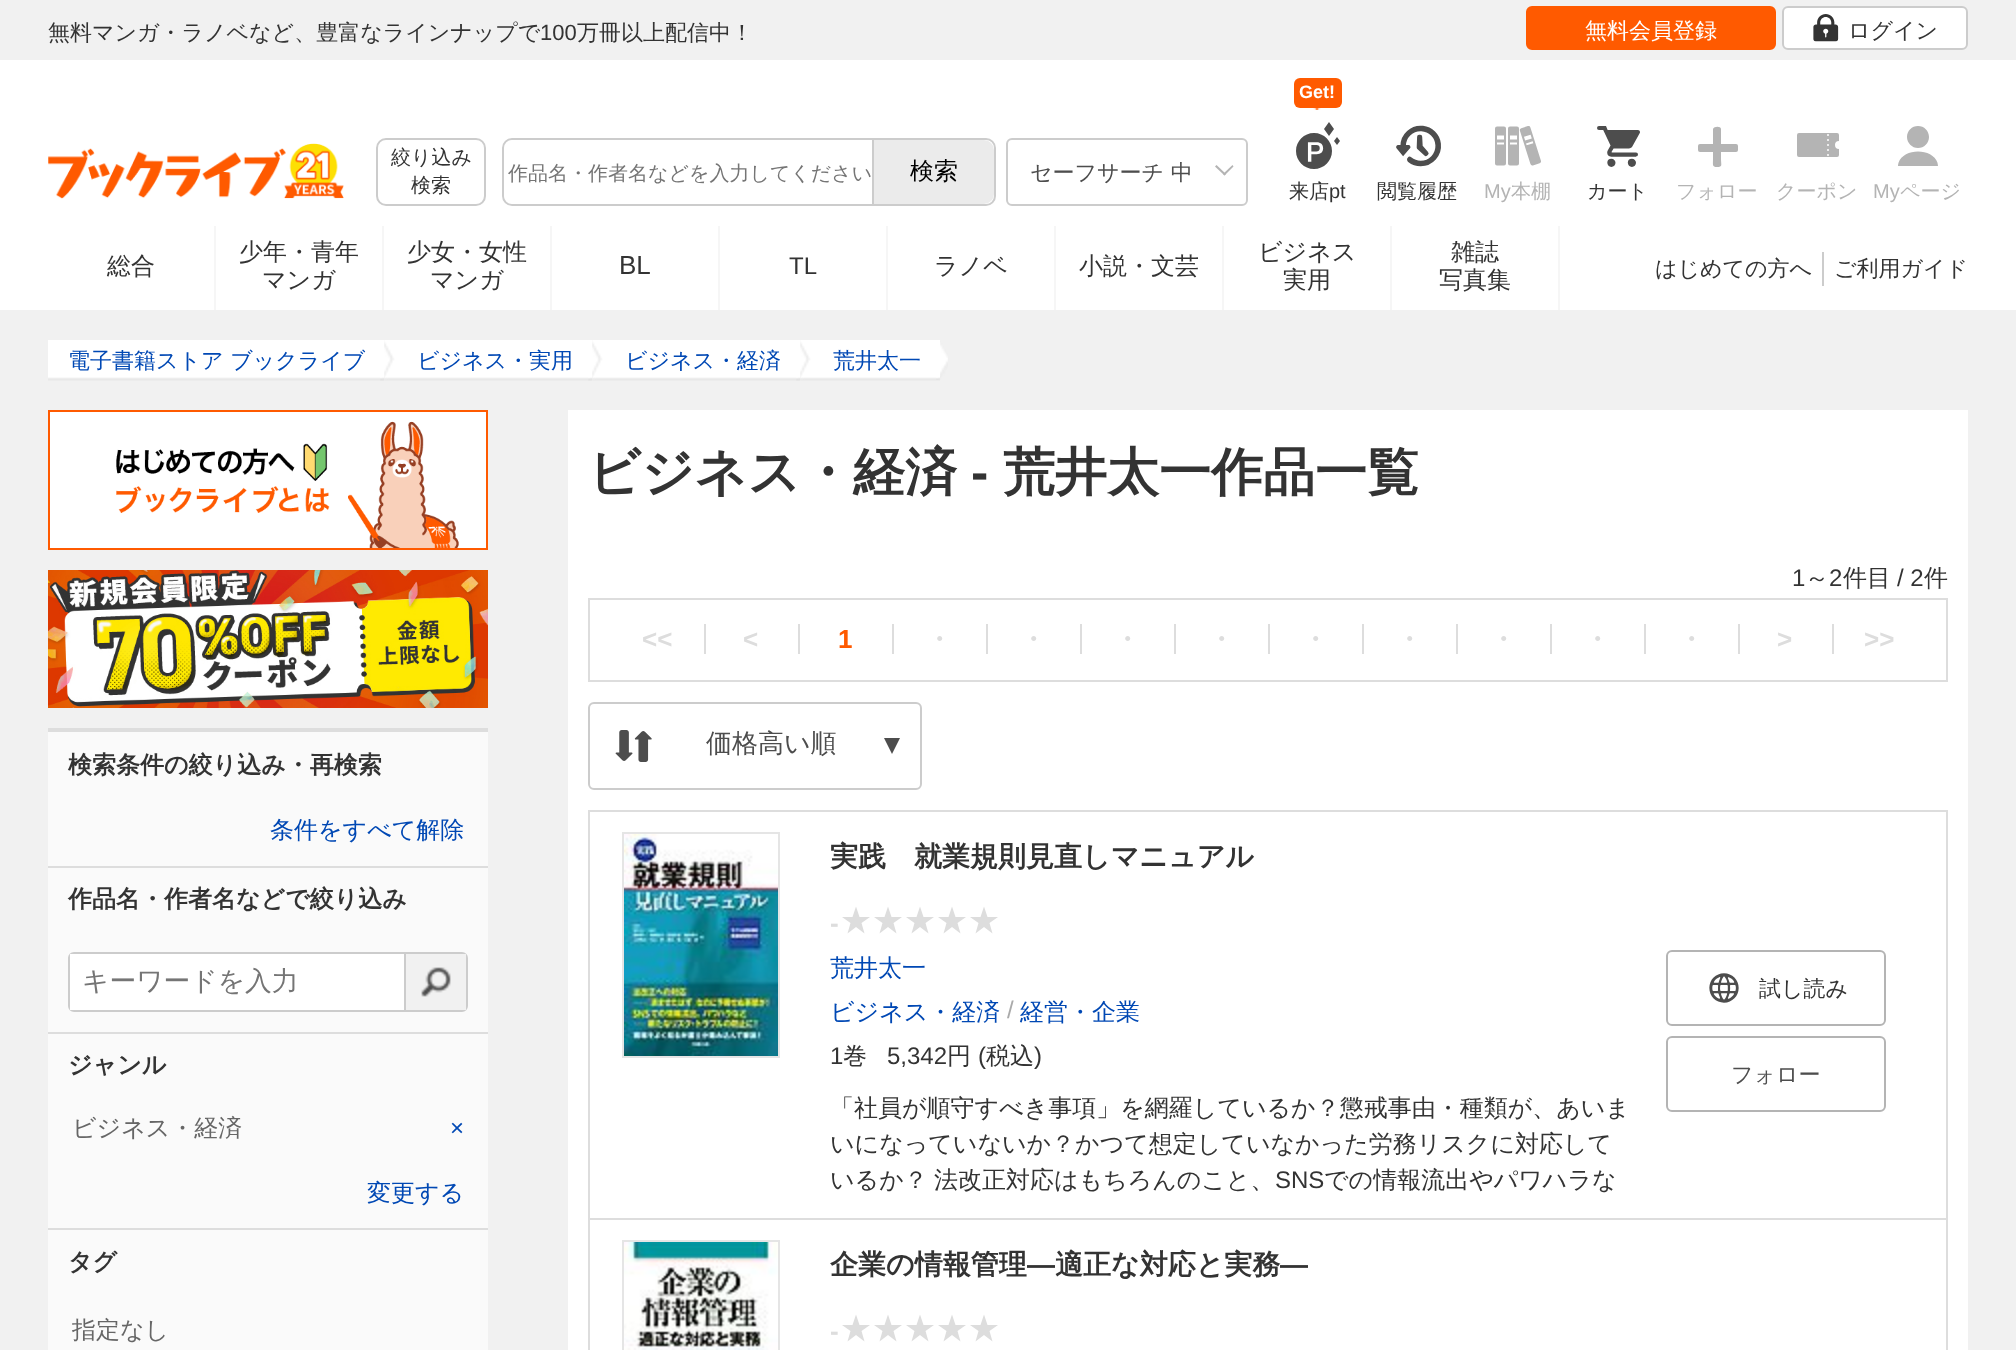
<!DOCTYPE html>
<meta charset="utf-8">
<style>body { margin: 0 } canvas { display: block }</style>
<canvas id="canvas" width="2016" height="1350"></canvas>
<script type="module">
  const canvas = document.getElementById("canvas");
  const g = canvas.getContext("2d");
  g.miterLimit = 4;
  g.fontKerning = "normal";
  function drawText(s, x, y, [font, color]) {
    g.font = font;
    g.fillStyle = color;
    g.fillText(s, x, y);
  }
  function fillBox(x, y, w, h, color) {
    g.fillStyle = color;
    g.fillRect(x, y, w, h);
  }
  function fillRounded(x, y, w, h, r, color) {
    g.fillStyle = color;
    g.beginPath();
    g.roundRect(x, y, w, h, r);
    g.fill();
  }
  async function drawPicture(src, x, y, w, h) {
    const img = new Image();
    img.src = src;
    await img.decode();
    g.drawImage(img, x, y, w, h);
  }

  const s1 = ["500 22px WenQuanYi Zen Hei", "#333333"];
  const s2 = ["22px Liberation Sans", "#333333"];
  const s3 = ["500 22px WenQuanYi Zen Hei", "#FFFFFF"];
  const s4 = ["500 20px WenQuanYi Zen Hei", "#333333"];
  const s5 = ["500 20px WenQuanYi Zen Hei", "#757575"];
  const s6 = ["500 24px WenQuanYi Zen Hei", "#000000"];
  const s7 = ["500 22px WenQuanYi Zen Hei", "#4D4D4D"];
  const s8 = ["bold 18px Liberation Sans", "#FFFFFF"];
  const s9 = ["20px Liberation Sans", "#333333"];
  const s10 = ["20px Liberation Sans", "#B4B4B4"];
  const s11 = ["500 20px WenQuanYi Zen Hei", "#B4B4B4"];
  const s12 = ["500 24px WenQuanYi Zen Hei", "#333333"];
  const s13 = ["26px Liberation Sans", "#333333"];
  const s14 = ["24px Liberation Sans", "#333333"];
  const s15 = ["500 22px WenQuanYi Zen Hei", "#0048B4"];
  const s16 = ["bold 24px WenQuanYi Zen Hei", "#333333"];
  const s17 = ["500 24px WenQuanYi Zen Hei", "#0048B4"];
  const s18 = ["500 26.75px WenQuanYi Zen Hei", "#757575"];
  const s19 = ["500 24px WenQuanYi Zen Hei", "#666666"];
  const s20 = ["24px Liberation Sans", "#0048B4"];
  const s21 = ["bold 52px WenQuanYi Zen Hei", "#333333"];
  const s22 = ["bold 52px Liberation Sans", "#333333"];
  const s23 = ["bold 26px Liberation Sans", "#DDDDDD"];
  const s24 = ["bold 26px Liberation Sans", "#FF5A00"];
  const s25 = ["bold 26px WenQuanYi Zen Hei", "#DDDDDD"];
  const s26 = ["500 26px WenQuanYi Zen Hei", "#4D4D4D"];
  const s27 = ["bold 28px WenQuanYi Zen Hei", "#333333"];
  const s28 = ["24px Liberation Sans", "#AAAAAA"];
  const s29 = ["bold 28px Liberation Sans", "#333333"];

  fillBox(0, 0, 2016, 1350, "#F1F1F1");
  fillBox(0, 60, 2016, 250, "#FFFFFF");
  drawText("無料マンガ・ラノベなど、豊富なラインナップで", 48, 40, s1);
  drawText("100", 540, 40, s2);
  drawText("万冊以上配信中！", 577, 40, s1);
  g.fillStyle = "#FF5A00";
  g.beginPath();
  g.roundRect(1527, 7, 248, 42, 5);
  g.fill();
  g.strokeStyle = "#FF5A00";
  g.lineWidth = 2;
  g.stroke();
  drawText("無料会員登録", 1585, 38, s3);
  g.beginPath();
  g.roundRect(1783, 7, 184, 42, 5);
  g.fill();
  g.strokeStyle = "#CCCCCC";
  g.stroke();
  await drawPicture("pic1.png", 1813, 14, 26, 28);
  drawText("ログイン", 1848, 38, s1);
  await drawPicture("pic2.png", 48, 143, 296, 56);
  g.beginPath();
  g.roundRect(377, 139, 108, 66, 9);
  g.stroke();
  drawText("絞り込み", 391, 164, s4);
  drawText("検索", 411, 192, s4);
  g.beginPath();
  g.roundRect(503, 139, 492, 66, 9);
  g.stroke();
  g.fillStyle = "#FFFFFF";
  g.beginPath();
  g.roundRect(504, 140, 368, 64, [10, 0, 0, 10]);
  g.fill();
  drawText("作品名・作者名などを入力してください", 508, 180, s5);
  g.fillStyle = "#EBEBEB";
  g.beginPath();
  g.roundRect(872, 140, 122, 64, [0, 10, 10, 0]);
  g.fill();
  fillBox(872, 140, 2, 64, "#CCCCCC");
  drawText("検索", 910, 179, s6);
  g.beginPath();
  g.roundRect(1007, 139, 240, 66, 5);
  g.stroke();
  drawText("セーフサーチ 中", 1030, 180, s7);
  g.fillStyle = "#B4B4B4";
  g.beginPath();
  g.moveTo(1233.5, 166.5);
  g.lineTo(1224.5, 175.5);
  g.lineTo(1223, 174);
  g.lineTo(1232.5, 165);
  g.closePath();
  g.fill();
  g.beginPath();
  g.moveTo(1226, 174);
  g.lineTo(1224.5, 175.5);
  g.lineTo(1215, 166.5);
  g.lineTo(1216.5, 165);
  g.closePath();
  g.fill();
  fillRounded(1294, 78, 48, 30, 6, "#FF5A00");
  drawText("Get!", 1299, 98, s8);
  await drawPicture("pic3.png", 1313, 108, 8, 2);
  await drawPicture("pic4.png", 1296, 122, 44, 47);
  drawText("来店", 1289, 198, s4);
  drawText("pt", 1329, 198, s9);
  await drawPicture("pic5.png", 1396, 125, 45, 42);
  drawText("閲覧履歴", 1377, 198, s4);
  await drawPicture("pic6.png", 1495, 126, 46, 40);
  drawText("My", 1484, 198, s10);
  drawText("本棚", 1511, 198, s11);
  await drawPicture("pic7.png", 1597, 126, 43, 41);
  drawText("カート", 1587, 198, s4);
  fillRounded(1698, 144, 40, 8, 2, "#B4B4B4");
  g.beginPath();
  g.moveTo(1721, 129);
  g.lineTo(1721, 159);
  g.bezierCurveTo(1721, 165, 1723, 167, 1717, 167);
  g.bezierCurveTo(1712, 167, 1713, 165, 1713, 159);
  g.lineTo(1713, 129);
  g.bezierCurveTo(1714, 126, 1721, 126, 1721, 129);
  g.closePath();
  g.fill();
  drawText("フォロー", 1676, 198, s11);
  await drawPicture("pic8.png", 1797, 133, 42, 24);
  drawText("クーポン", 1776, 198, s11);
  await drawPicture("pic9.png", 1898, 126, 40, 40);
  drawText("My", 1873, 198, s10);
  drawText("ページ", 1900, 198, s11);
  fillBox(214, 226, 2, 84, "#F6F6F6");
  drawText("総合", 107, 274, s12);
  fillBox(382, 226, 2, 84, "#F6F6F6");
  drawText("少年・青年", 239, 260, s12);
  drawText("マンガ", 262, 288, s12);
  fillBox(550, 226, 2, 84, "#F6F6F6");
  drawText("少女・女性", 407, 260, s12);
  drawText("マンガ", 430, 288, s12);
  fillBox(718, 226, 2, 84, "#F6F6F6");
  drawText("BL", 619, 274, s13);
  fillBox(886, 226, 2, 84, "#F6F6F6");
  drawText("TL", 789, 274, s14);
  fillBox(1054, 226, 2, 84, "#F6F6F6");
  drawText("ラノベ", 934, 274, s12);
  fillBox(1222, 226, 2, 84, "#F6F6F6");
  drawText("小説・文芸", 1079, 274, s12);
  fillBox(1390, 226, 2, 84, "#F6F6F6");
  drawText("ビジネス", 1258, 260, s12);
  drawText("実用", 1283, 288, s12);
  fillBox(1558, 226, 2, 84, "#F6F6F6");
  drawText("雑誌", 1451, 260, s12);
  drawText("写真集", 1439, 288, s12);
  fillBox(1822, 252, 2, 34, "#CCCCCC");
  drawText("はじめての方へ", 1655, 276, s1);
  drawText("ご利用ガイド", 1834, 276, s1);
  await drawPicture("pic10.png", 380, 340, 16, 41);
  await drawPicture("pic11.png", 48, 340, 336, 41);
  drawText("電子書籍ストア ブックライブ", 68, 368, s15);
  await drawPicture("pic10.png", 588, 340, 16, 41);
  await drawPicture("pic12.png", 396, 340, 196, 41);
  drawText("ビジネス・実用", 417, 368, s15);
  await drawPicture("pic10.png", 796, 340, 16, 41);
  await drawPicture("pic12.png", 604, 340, 196, 41);
  drawText("ビジネス・経済", 625, 368, s15);
  await drawPicture("pic13.png", 936, 340, 12, 40);
  await drawPicture("pic14.png", 812, 340, 128, 41);
  drawText("荒井太一", 833, 368, s15);
  await drawPicture("pic15.png", 48, 410, 440, 140);
  await drawPicture("pic16.png", 48, 570, 440, 138);
  fillBox(48, 732, 440, 618, "#FAFAFA");
  fillBox(48, 728, 440, 4, "#DDDDDD");
  drawText("検索条件の絞り込み・再検索", 68, 773, s16);
  drawText("条件をすべて解除", 270, 838, s17);
  fillBox(48, 866, 440, 2, "#DDDDDD");
  drawText("作品名・作者名などで絞り込み", 68, 907, s16);
  g.beginPath();
  g.roundRect(69, 953, 398, 58, 5);
  g.stroke();
  fillBox(70, 954, 334, 56, "#FFFFFF");
  drawText("キーワードを入力", 82, 990, s18);
  fillBox(406, 954, 60, 56, "#F1F1F1");
  await drawPicture("pic17.png", 421, 967, 30, 30);
  fillBox(404, 954, 2, 56, "#CCCCCC");
  fillBox(48, 1032, 440, 2, "#DDDDDD");
  drawText("ジャンル", 68, 1073, s16);
  drawText("ビジネス・経済", 72, 1136, s19);
  drawText("×", 450, 1136, s20);
  drawText("変更する", 367, 1201, s17);
  fillBox(48, 1228, 440, 2, "#DDDDDD");
  drawText("タグ", 68, 1270, s16);
  drawText("指定なし", 72, 1338, s19);
  fillBox(568, 410, 1400, 940, "#FFFFFF");
  drawText("ビジネス・経済", 588, 490, s21);
  drawText("-", 971, 490, s22);
  drawText("荒井太一作品一覧", 1003, 490, s21);
  drawText("1", 1792, 586, s14);
  drawText("～", 1805, 586, s12);
  drawText("2", 1829, 586, s14);
  drawText("件目", 1843, 586, s12);
  drawText("/ 2", 1897, 586, s14);
  drawText("件", 1924, 586, s12);
  g.strokeStyle = "#DDDDDD";
  g.strokeRect(589, 599, 1358, 82);
  drawText("<<", 642, 648, s23);
  fillBox(704, 624, 2, 30, "#DDDDDD");
  drawText("<", 743, 648, s23);
  fillBox(798, 624, 2, 30, "#DDDDDD");
  drawText("1", 838, 648, s24);
  fillBox(892, 624, 2, 30, "#DDDDDD");
  drawText("・", 926, 648, s25);
  fillBox(986, 624, 2, 30, "#DDDDDD");
  drawText("・", 1020, 648, s25);
  fillBox(1080, 624, 2, 30, "#DDDDDD");
  drawText("・", 1114, 648, s25);
  fillBox(1174, 624, 2, 30, "#DDDDDD");
  drawText("・", 1208, 648, s25);
  fillBox(1268, 624, 2, 30, "#DDDDDD");
  drawText("・", 1302, 648, s25);
  fillBox(1362, 624, 2, 30, "#DDDDDD");
  drawText("・", 1396, 648, s25);
  fillBox(1456, 624, 2, 30, "#DDDDDD");
  drawText("・", 1490, 648, s25);
  fillBox(1550, 624, 2, 30, "#DDDDDD");
  drawText("・", 1584, 648, s25);
  fillBox(1644, 624, 2, 30, "#DDDDDD");
  drawText("・", 1678, 648, s25);
  fillBox(1738, 624, 2, 30, "#DDDDDD");
  drawText(">", 1777, 648, s23);
  fillBox(1832, 624, 2, 30, "#DDDDDD");
  drawText(">>", 1864, 648, s23);
  g.beginPath();
  g.roundRect(589, 703, 332, 86, 5);
  g.strokeStyle = "#CCCCCC";
  g.stroke();
  await drawPicture("pic18.png", 615, 730, 37, 32);
  drawText("価格高い順", 706, 752, s26);
  g.beginPath();
  g.moveTo(884, 738);
  g.lineTo(900, 738);
  g.lineTo(892, 754);
  g.closePath();
  g.fill();
  fillBox(588, 810, 1360, 2, "#DDDDDD");
  fillBox(1946, 810, 2, 540, "#DDDDDD");
  fillBox(588, 810, 2, 540, "#DDDDDD");
  fillBox(590, 1218, 1356, 2, "#DDDDDD");
  g.strokeStyle = "#E5E5E5";
  g.strokeRect(623, 833, 156, 224);
  await drawPicture("pic19.png", 624, 834, 154, 222);
  drawText("実践　就業規則見直しマニュアル", 830, 866, s27);
  drawText("-", 830, 932, s23);
  g.beginPath();
  g.moveTo(856, 906.5);
  g.lineTo(859.5, 917);
  g.lineTo(870, 917);
  g.lineTo(861.5, 923);
  g.lineTo(864.5, 933.5);
  g.lineTo(856, 927);
  g.lineTo(847.5, 933.5);
  g.lineTo(850.5, 923);
  g.lineTo(842, 917);
  g.lineTo(852.5, 917);
  g.closePath();
  g.moveTo(888, 906.5);
  g.lineTo(891.5, 917);
  g.lineTo(902, 917);
  g.lineTo(893.5, 923);
  g.lineTo(896.5, 933.5);
  g.lineTo(888, 927);
  g.lineTo(879.5, 933.5);
  g.lineTo(882.5, 923);
  g.lineTo(874, 917);
  g.lineTo(884.5, 917);
  g.closePath();
  g.fill();
  g.beginPath();
  g.moveTo(920, 906.5);
  g.lineTo(923.5, 917);
  g.lineTo(934, 917);
  g.lineTo(925.5, 923);
  g.lineTo(928.5, 933.5);
  g.lineTo(920, 927);
  g.lineTo(911.5, 933.5);
  g.lineTo(914.5, 923);
  g.lineTo(906, 917);
  g.lineTo(916.5, 917);
  g.closePath();
  g.moveTo(952, 906.5);
  g.lineTo(955.5, 917);
  g.lineTo(966, 917);
  g.lineTo(957.5, 923);
  g.lineTo(960.5, 933.5);
  g.lineTo(952, 927);
  g.lineTo(943.5, 933.5);
  g.lineTo(946.5, 923);
  g.lineTo(938, 917);
  g.lineTo(948.5, 917);
  g.closePath();
  g.fill();
  g.beginPath();
  g.moveTo(984, 906.5);
  g.lineTo(987.5, 917);
  g.lineTo(998, 917);
  g.lineTo(989.5, 923);
  g.lineTo(992.5, 933.5);
  g.lineTo(984, 927);
  g.lineTo(975.5, 933.5);
  g.lineTo(978.5, 923);
  g.lineTo(970, 917);
  g.lineTo(980.5, 917);
  g.closePath();
  g.fill();
  drawText("荒井太一", 830, 976, s17);
  drawText("ビジネス・経済", 830, 1020, s17);
  drawText("/", 1007, 1018, s28);
  drawText("経営・企業", 1020, 1020, s17);
  drawText("1", 830, 1064, s14);
  drawText("巻", 843, 1064, s12);
  drawText("5,342", 887, 1064, s14);
  drawText("円", 947, 1064, s12);
  drawText("(", 978, 1064, s14);
  drawText("税込", 986, 1064, s12);
  drawText(")", 1034, 1064, s14);
  drawText("「社員が順守すべき事項」を網羅しているか？懲戒事由・種類が、あいま", 830, 1116, s12);
  drawText("いになっていないか？かつて想定していなかった労務リスクに対応して", 830, 1152, s12);
  g.wordSpacing = "-1px";
  drawText("いるか？ 法改正対応はもちろんのこと、", 830, 1188, s12);
  g.wordSpacing = "0px";
  drawText("SNS", 1275, 1188, s14);
  drawText("での情報流出やパワハラな", 1324, 1188, s12);
  g.beginPath();
  g.roundRect(1667, 951, 218, 74, 5);
  g.strokeStyle = "#B4B4B4";
  g.stroke();
  await drawPicture("pic20.png", 1709, 973, 30, 30);
  drawText("試し読み", 1759, 996, s1);
  g.beginPath();
  g.roundRect(1667, 1037, 218, 74, 5);
  g.stroke();
  drawText("フォロー", 1731, 1082, s7);
  g.strokeStyle = "#E5E5E5";
  g.strokeRect(623, 1241, 156, 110);
  await drawPicture("pic21.png", 624, 1242, 154, 108);
  drawText("企業の情報管理", 830, 1274, s27);
  drawText("―", 1027, 1274, s29);
  drawText("適正な対応と実務", 1055, 1274, s27);
  drawText("―", 1280, 1274, s29);
  drawText("-", 830, 1340, s23);
  g.beginPath();
  g.moveTo(856, 1314.5);
  g.lineTo(859.5, 1325);
  g.lineTo(870, 1325);
  g.lineTo(861.5, 1331);
  g.lineTo(864.5, 1341.5);
  g.lineTo(856, 1335);
  g.lineTo(847.5, 1341.5);
  g.lineTo(850.5, 1331);
  g.lineTo(842, 1325);
  g.lineTo(852.5, 1325);
  g.closePath();
  g.moveTo(888, 1314.5);
  g.lineTo(891.5, 1325);
  g.lineTo(902, 1325);
  g.lineTo(893.5, 1331);
  g.lineTo(896.5, 1341.5);
  g.lineTo(888, 1335);
  g.lineTo(879.5, 1341.5);
  g.lineTo(882.5, 1331);
  g.lineTo(874, 1325);
  g.lineTo(884.5, 1325);
  g.closePath();
  g.fill();
  g.beginPath();
  g.moveTo(920, 1314.5);
  g.lineTo(923.5, 1325);
  g.lineTo(934, 1325);
  g.lineTo(925.5, 1331);
  g.lineTo(928.5, 1341.5);
  g.lineTo(920, 1335);
  g.lineTo(911.5, 1341.5);
  g.lineTo(914.5, 1331);
  g.lineTo(906, 1325);
  g.lineTo(916.5, 1325);
  g.closePath();
  g.moveTo(952, 1314.5);
  g.lineTo(955.5, 1325);
  g.lineTo(966, 1325);
  g.lineTo(957.5, 1331);
  g.lineTo(960.5, 1341.5);
  g.lineTo(952, 1335);
  g.lineTo(943.5, 1341.5);
  g.lineTo(946.5, 1331);
  g.lineTo(938, 1325);
  g.lineTo(948.5, 1325);
  g.closePath();
  g.fill();
  g.beginPath();
  g.moveTo(984, 1314.5);
  g.lineTo(987.5, 1325);
  g.lineTo(998, 1325);
  g.lineTo(989.5, 1331);
  g.lineTo(992.5, 1341.5);
  g.lineTo(984, 1335);
  g.lineTo(975.5, 1341.5);
  g.lineTo(978.5, 1331);
  g.lineTo(970, 1325);
  g.lineTo(980.5, 1325);
  g.closePath();
  g.fill();
</script>
